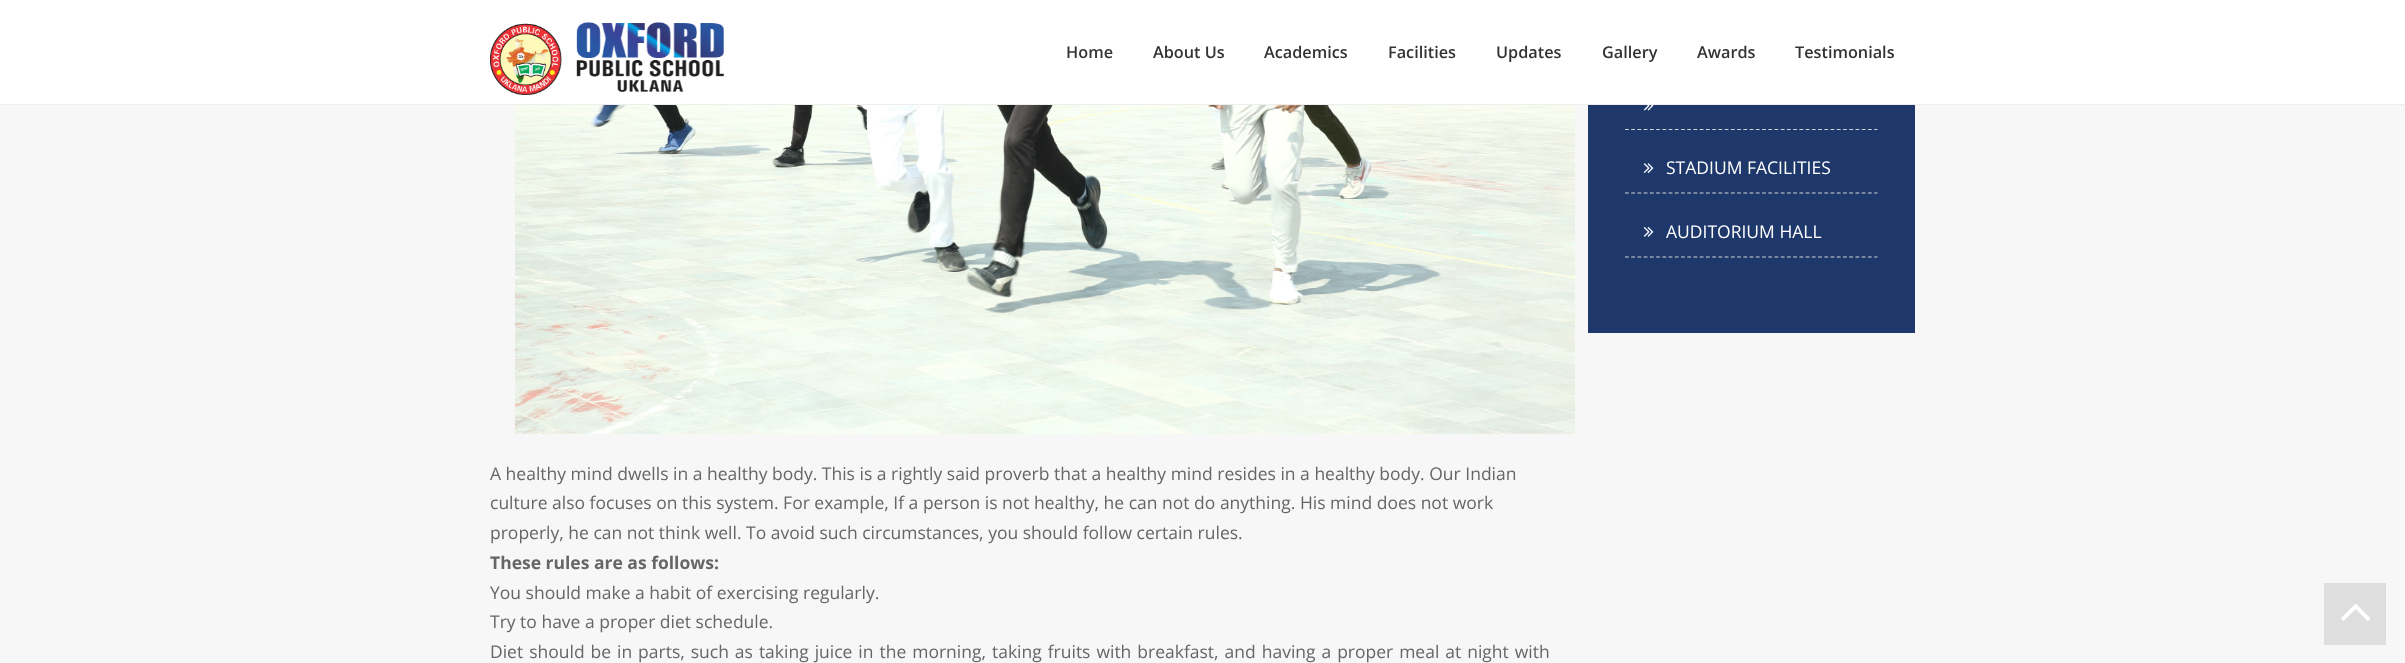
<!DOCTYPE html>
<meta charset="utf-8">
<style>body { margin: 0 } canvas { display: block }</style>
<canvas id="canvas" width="2405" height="663"></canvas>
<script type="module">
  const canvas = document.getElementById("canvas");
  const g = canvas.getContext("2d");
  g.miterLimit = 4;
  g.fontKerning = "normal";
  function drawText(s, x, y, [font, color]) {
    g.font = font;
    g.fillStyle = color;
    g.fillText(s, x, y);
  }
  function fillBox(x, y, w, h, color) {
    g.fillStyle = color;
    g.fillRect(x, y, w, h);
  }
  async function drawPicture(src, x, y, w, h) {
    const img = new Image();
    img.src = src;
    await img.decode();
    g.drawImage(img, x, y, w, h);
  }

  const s1 = ["600 16.25px Open Sans", "#333333"];
  const s2 = ["17.5px Open Sans", "#FFFFFF"];
  const s3 = ["17.5px Open Sans", "#666666"];
  const s4 = ["bold 17.5px Open Sans", "#666666"];

  fillBox(0, 0, 2405, 663, "#F7F7F7");
  fillBox(0, 0, 2405, 104, "#FFFFFF");
  fillBox(0, 104, 2405, 1, "#EEEEEE");
  await drawPicture("pic1.png", 490, 22, 234, 73);
  drawText("Home", 1066, 58, s1);
  drawText("About Us", 1153, 58, s1);
  drawText("Academics", 1264, 58, s1);
  drawText("Facilities", 1388, 58, s1);
  drawText("Updates", 1496, 58, s1);
  drawText("Gallery", 1602, 58, s1);
  drawText("Awards", 1697, 58, s1);
  drawText("Testimonials", 1795, 58, s1);
  fillBox(1588, 105, 327, 228, "#1F386B");
  g.beginPath();
  g.moveTo(1625, 129.5);
  g.lineTo(1877.5, 129.5);
  g.strokeStyle = "#D3D3D3";
  g.lineWidth = 1.2;
  g.setLineDash([3.75, 2.48]);
  g.stroke();
  await drawPicture("pic2.png", 1643, 105, 11, 6);
  g.beginPath();
  g.moveTo(1625, 193);
  g.lineTo(1877.5, 193);
  g.stroke();
  await drawPicture("pic3.png", 1643, 163, 11, 10);
  drawText("STADIUM FACILITIES", 1666, 174, s2);
  g.beginPath();
  g.moveTo(1625, 257);
  g.lineTo(1877.5, 257);
  g.stroke();
  await drawPicture("pic4.png", 1643, 227, 11, 10);
  drawText("AUDITORIUM HALL", 1666, 238, s2);
  await drawPicture("pic5.png", 515, 105, 1060, 329);
  drawText("A healthy mind dwells in a healthy body. This is a rightly said proverb that a healthy mind resides in a healthy body. Our Indian", 490, 480, s3);
  drawText("culture also focuses on this system. For example, If a person is not healthy, he can not do anything. His mind does not work", 490, 509, s3);
  drawText("properly, he can not think well. To avoid such circumstances, you should follow certain rules.", 490, 539, s3);
  drawText("These rules are as follows:", 490, 569, s4);
  drawText("You should make a habit of exercising regularly.", 490, 599, s3);
  drawText("Try to have a proper diet schedule.", 490, 628, s3);
  g.wordSpacing = "1.4px";
  drawText("Diet should be in parts, such as taking juice in the morning, taking fruits with breakfast, and having a proper meal at night with", 490, 658, s3);
  fillBox(2324, 583, 62, 62, "#DEDEDE");
  await drawPicture("pic6.png", 2341, 604, 30, 17);
</script>
